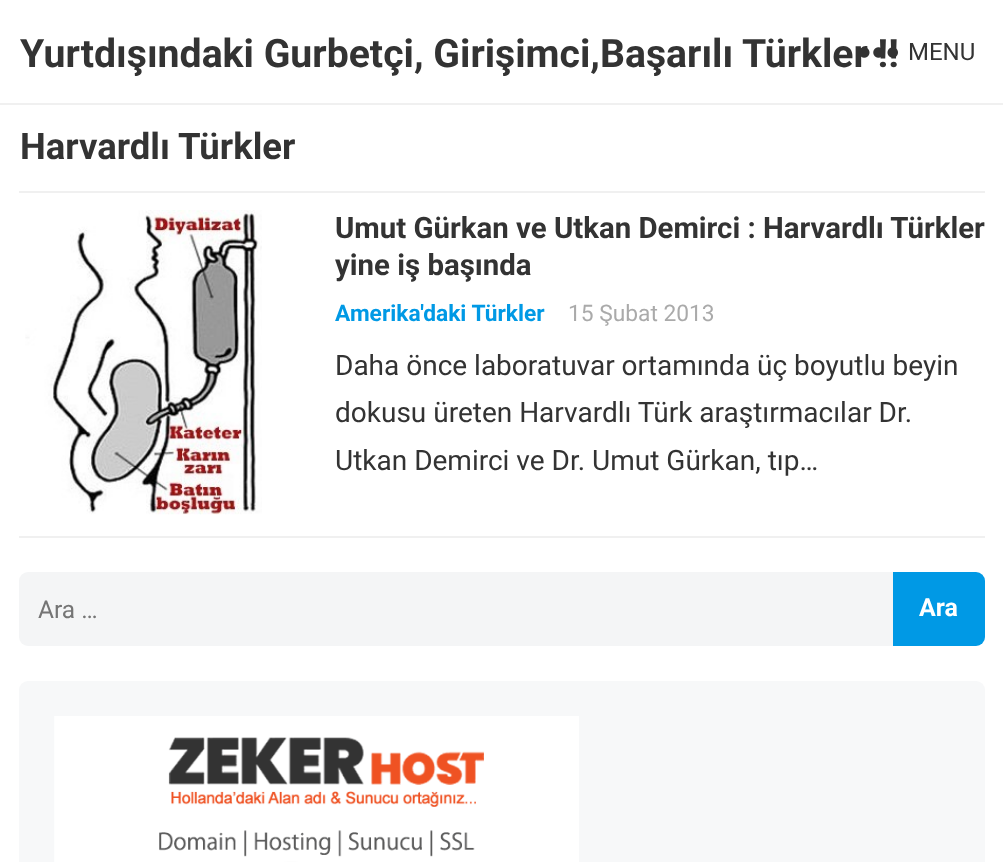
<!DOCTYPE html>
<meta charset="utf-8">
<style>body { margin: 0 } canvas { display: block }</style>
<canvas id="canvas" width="1003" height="862"></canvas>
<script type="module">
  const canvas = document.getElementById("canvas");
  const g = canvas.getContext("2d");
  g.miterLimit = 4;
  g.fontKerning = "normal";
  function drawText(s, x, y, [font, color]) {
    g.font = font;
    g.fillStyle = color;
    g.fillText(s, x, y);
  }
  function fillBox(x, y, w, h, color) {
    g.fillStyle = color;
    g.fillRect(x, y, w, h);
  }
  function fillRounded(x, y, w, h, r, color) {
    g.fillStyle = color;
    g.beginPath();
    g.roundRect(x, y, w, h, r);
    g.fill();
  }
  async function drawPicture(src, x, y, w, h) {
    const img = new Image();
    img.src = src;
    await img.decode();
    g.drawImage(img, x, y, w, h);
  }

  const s1 = ["bold 39.2px Roboto", "#333333"];
  const s2 = ["24px Roboto", "#333333"];
  const s3 = ["bold 36.5px Roboto", "#333333"];
  const s4 = ["bold 29.4px Roboto", "#333333"];
  const s5 = ["bold 22.75px Roboto", "#0099E5"];
  const s6 = ["22.75px Roboto", "#AAAAAA"];
  const s7 = ["28px Roboto", "#333333"];
  const s8 = ["24.5px Roboto", "#757575"];
  const s9 = ["bold 25px Roboto", "#FFFFFF"];

  fillBox(0, 0, 1003, 862, "#FFFFFF");
  fillBox(0, 103, 1003, 2, "#F0F0F0");
  drawText("Yurtdışındaki Gurbetçi, Girişimci,Başarılı Türkler !!", 20, 67, s1);
  await drawPicture("pic1.png", 861, 47, 37, 11);
  drawText("MENU", 908, 60, s2);
  fillBox(19, 191, 966, 2, "#F0F0F0");
  drawText("Harvardlı Türkler", 20, 159, s3);
  fillBox(19, 536, 966, 2, "#F0F0F0");
  await drawPicture("pic2.png", 25, 210, 237, 305);
  drawText("Umut Gürkan ve Utkan Demirci : Harvardlı Türkler", 335, 238, s4);
  drawText("yine iş başında", 335, 275, s4);
  drawText("Amerika'daki Türkler", 335, 321, s5);
  drawText("15 Şubat 2013", 568, 321, s6);
  drawText("Daha önce laboratuvar ortamında üç boyutlu beyin", 335, 375, s7);
  drawText("dokusu üreten Harvardlı Türk araştırmacılar Dr.", 335, 422, s7);
  drawText("Utkan Demirci ve Dr. Umut Gürkan, tıp…", 335, 470, s7);
  fillRounded(19, 572, 966, 74, 9, "#F4F5F6");
  drawText("Ara …", 38, 618, s8);
  g.fillStyle = "#0099E5";
  g.beginPath();
  g.roundRect(893, 572, 92, 74, [0, 9, 9, 0]);
  g.fill();
  drawText("Ara", 919, 616, s9);
  fillRounded(19, 681, 966, 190, 9, "#F7F8F9");
  await drawPicture("pic3.png", 54, 716, 525, 146);
</script>
